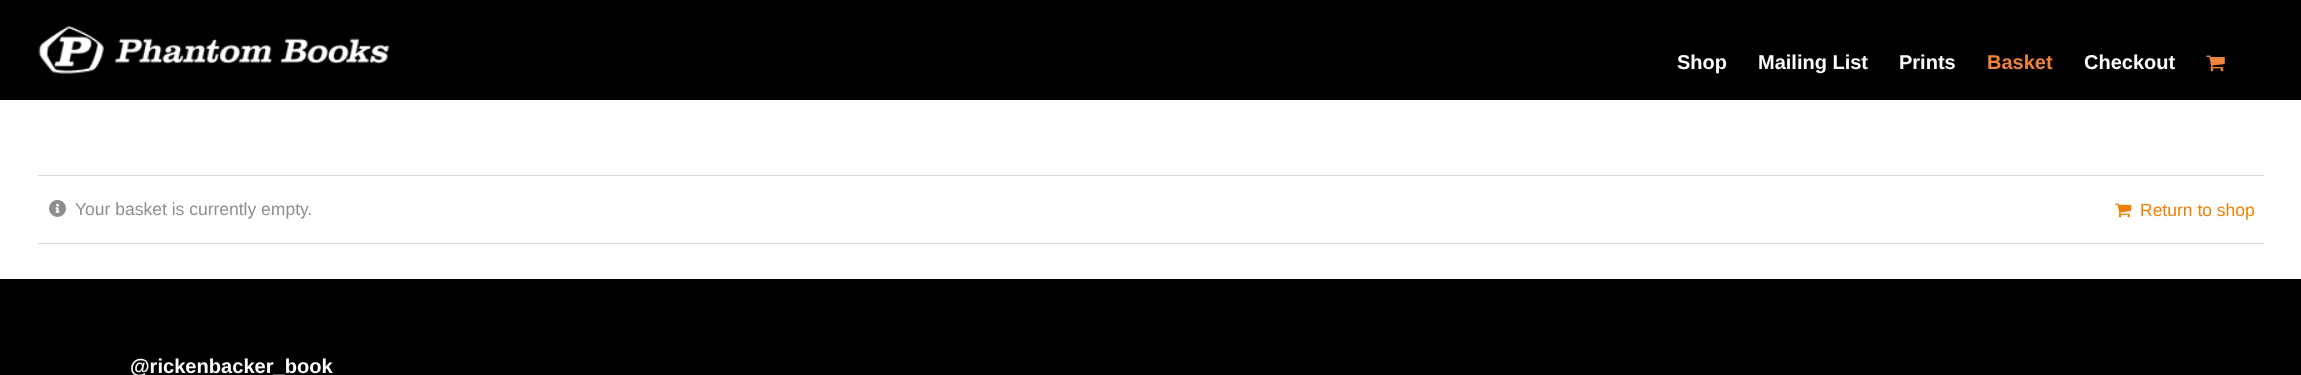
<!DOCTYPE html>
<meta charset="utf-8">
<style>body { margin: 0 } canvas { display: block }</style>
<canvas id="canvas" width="2301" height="375"></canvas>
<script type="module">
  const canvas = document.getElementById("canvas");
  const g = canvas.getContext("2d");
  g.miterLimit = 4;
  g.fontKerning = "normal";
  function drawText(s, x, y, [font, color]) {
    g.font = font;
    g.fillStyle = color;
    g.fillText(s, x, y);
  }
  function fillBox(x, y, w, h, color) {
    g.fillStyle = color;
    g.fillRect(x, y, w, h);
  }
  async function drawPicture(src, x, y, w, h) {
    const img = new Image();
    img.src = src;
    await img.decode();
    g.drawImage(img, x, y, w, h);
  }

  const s1 = ["bold 20px Liberation Sans", "#FDFDFD"];
  const s2 = ["bold 20px Liberation Sans", "#EF833B"];
  const s3 = ["17.5px Liberation Sans", "#8E8E8E"];
  const s4 = ["17.5px Liberation Sans", "#EF8002"];
  const s5 = ["bold 20.1px Liberation Sans", "#FDFDFD"];

  fillBox(0, 0, 2301, 375, "#FFFFFF");
  fillBox(0, 0, 2301, 100, "#000000");
  await drawPicture("pic1.png", 38, 26, 351, 48);
  drawText("Shop", 1677, 69, s1);
  drawText("Mailing List", 1758, 69, s1);
  drawText("Prints", 1899, 69, s1);
  drawText("Basket", 1987, 69, s2);
  drawText("Checkout", 2084, 69, s1);
  await drawPicture("pic2.png", 2206, 55, 19, 17);
  fillBox(38, 175, 2226, 1, "#D8D8D8");
  fillBox(38, 243, 2226, 1, "#D8D8D8");
  await drawPicture("pic3.png", 49, 200, 17, 17);
  drawText("Your basket is currently empty.", 75, 215, s3);
  await drawPicture("pic4.png", 2115, 203, 17, 15);
  drawText("Return to shop", 2140, 216, s4);
  fillBox(0, 279, 2301, 96, "#000000");
  drawText("@rickenbacker_book", 130, 373, s5);
</script>
